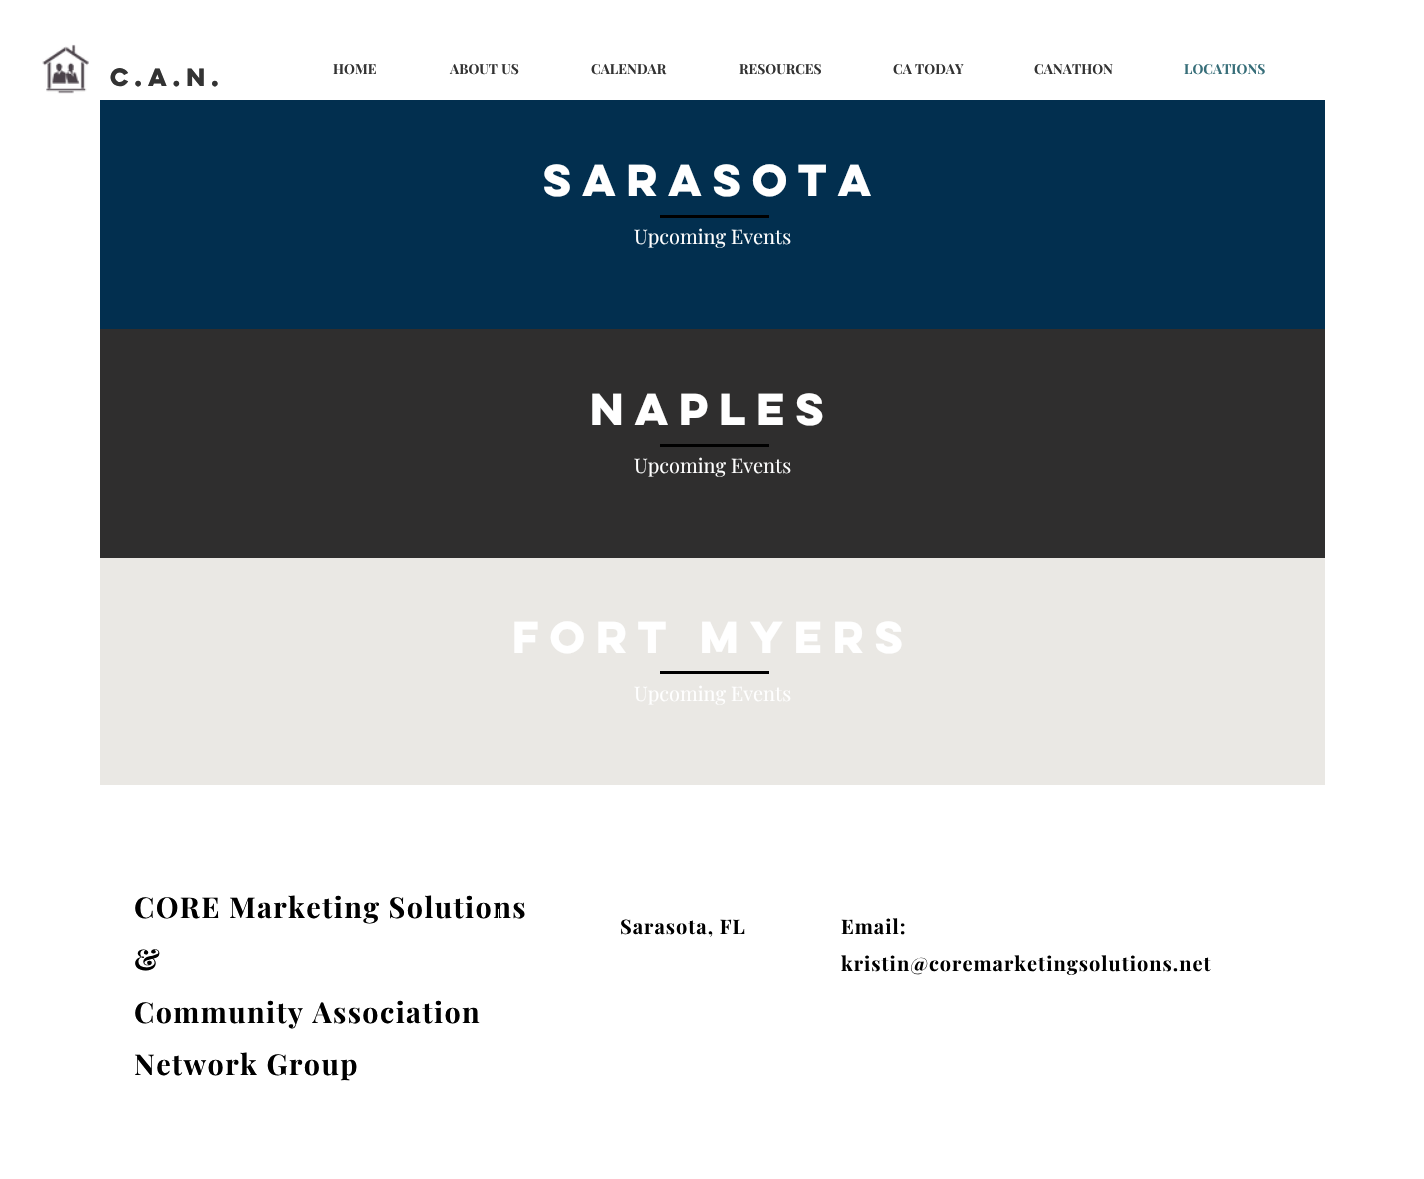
void draw(SkCanvas* canvas) {
  SkPaint paint;
  paint.setAntiAlias(true);
  auto face = [&](const char* family, int weight, float size, bool italic = false) {
    SkFontStyle style(weight, SkFontStyle::kNormal_Width,
      italic ? SkFontStyle::kItalic_Slant : SkFontStyle::kUpright_Slant);
    SkFont result(fontMgr->matchFamilyStyle(family, style), size);
    result.setSubpixel(true);
    return result;
  };
  auto writeSpaced = [&](const char* s, float x, float y, const SkFont& font, const SkPaint& ink, float letter, float word) {
    std::vector<SkGlyphID> glyphs(font.countText(s, strlen(s), SkTextEncoding::kUTF8));
    std::vector<float> xs(glyphs.size());
    font.textToGlyphs(s, strlen(s), SkTextEncoding::kUTF8, glyphs);
    font.getXPos(glyphs, xs, x);
    float extra = 0;
    for (size_t i = 0; i < glyphs.size(); i++) {
      xs[i] += extra;
      extra += letter + word * (glyphs[i] == font.unicharToGlyph(' '));
    }
    canvas->drawTextBlob(SkTextBlob::MakeFromPosHGlyphs(glyphs, xs, y, font), 0, 0, ink);
  };
  auto paste = [&](const char* path, float x, float y, float w, float h) {
    auto image = SkImages::DeferredFromEncodedData(SkData::MakeFromFileName(path));
    canvas->drawImageRect(image, SkRect::MakeXYWH(x, y, w, h), SkSamplingOptions());
  };
  canvas->clear(0xffffffff);
  paste("img/1.png", 42, 44, 47, 50);
  {
    const struct { float x, y, w, h; SkColor color; } items[] = {
      {100, 100, 1225, 229, 0xff022f4f},
      {660, 215, 109, 3, 0xff000000},
      {100, 329, 1225, 229, 0xff2f2e2e},
      {660, 444, 109, 3, 0xff000000},
      {100, 558, 1225, 227, 0xffeae8e4},
      {660, 671, 109, 3, 0xff000000},
    };
    for (auto [x, y, w, h, color] : items) {
      paint.setColor(color);
      canvas->drawRect(SkRect::MakeXYWH(x, y, w, h), paint);
    }
  }
  auto f0 = face("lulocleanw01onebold", 700, 22.5f);
  paint.setColor(0xff333333);
  writeSpaced("C.A.N.", 110, 86, f0, paint, 1, 0);
  auto f1 = face("Playfair Display", 700, 13.75f);
  {
    const struct { const char* s; float x, y; } items[] = {
      {"HOME", 333, 74},
      {"ABOUT US", 450, 74},
      {"CALENDAR", 591, 74},
      {"RESOURCES", 739, 74},
      {"CA TODAY", 893, 74},
      {"CANATHON", 1034, 74},
    };
    for (auto [s, x, y] : items) {
      canvas->drawString(s, x, y, f1, paint);
    }
  }
  paint.setColor(0xff376e79);
  canvas->drawString("LOCATIONS", 1184, 74, f1, paint);
  auto f2 = face("lulocleanw01onebold", 700, 40);
  paint.setColor(0xffffffff);
  writeSpaced("Sarasota", 543, 196, f2, paint, 2, 0);
  auto f3 = face("Playfair Display", 400, 20);
  canvas->drawString("Upcoming Events", 634, 244, f3, paint);
  writeSpaced("Naples", 590, 425, f2, paint, 2, 0);
  canvas->drawString("Upcoming Events", 634, 473, f3, paint);
  writeSpaced("FORT MYERS", 512, 653, f2, paint, 2, 0);
  canvas->drawString("Upcoming Events", 634, 701, f3, paint);
  auto f4 = face("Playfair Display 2", 700, 28.75f);
  paint.setColor(0xff000000);
  {
    const struct { const char* s; float x, y; } items[] = {
      {"CORE Marketing Solutions", 134, 918},
      {"&", 134, 970},
      {"Community Association", 134, 1023},
      {"Network Group", 134, 1075},
    };
    for (auto [s, x, y] : items) {
      writeSpaced(s, x, y, f4, paint, 1.4f, 0);
    }
  }
  paint.setColor(0xffffffff);
  canvas->drawRect(SkRect::MakeXYWH(498, 909, 1, 9), paint);
  auto f5 = face("Playfair Display 2", 700, 20);
  paint.setColor(0xff000000);
  {
    const struct { const char* s; float x, y; } items[] = {
      {"Sarasota, FL", 620, 934},
      {"Email:", 841, 934},
      {"kristin@coremarketingsolutions.net", 841, 971},
    };
    for (auto [s, x, y] : items) {
      writeSpaced(s, x, y, f5, paint, 1, 0);
    }
  }
}
